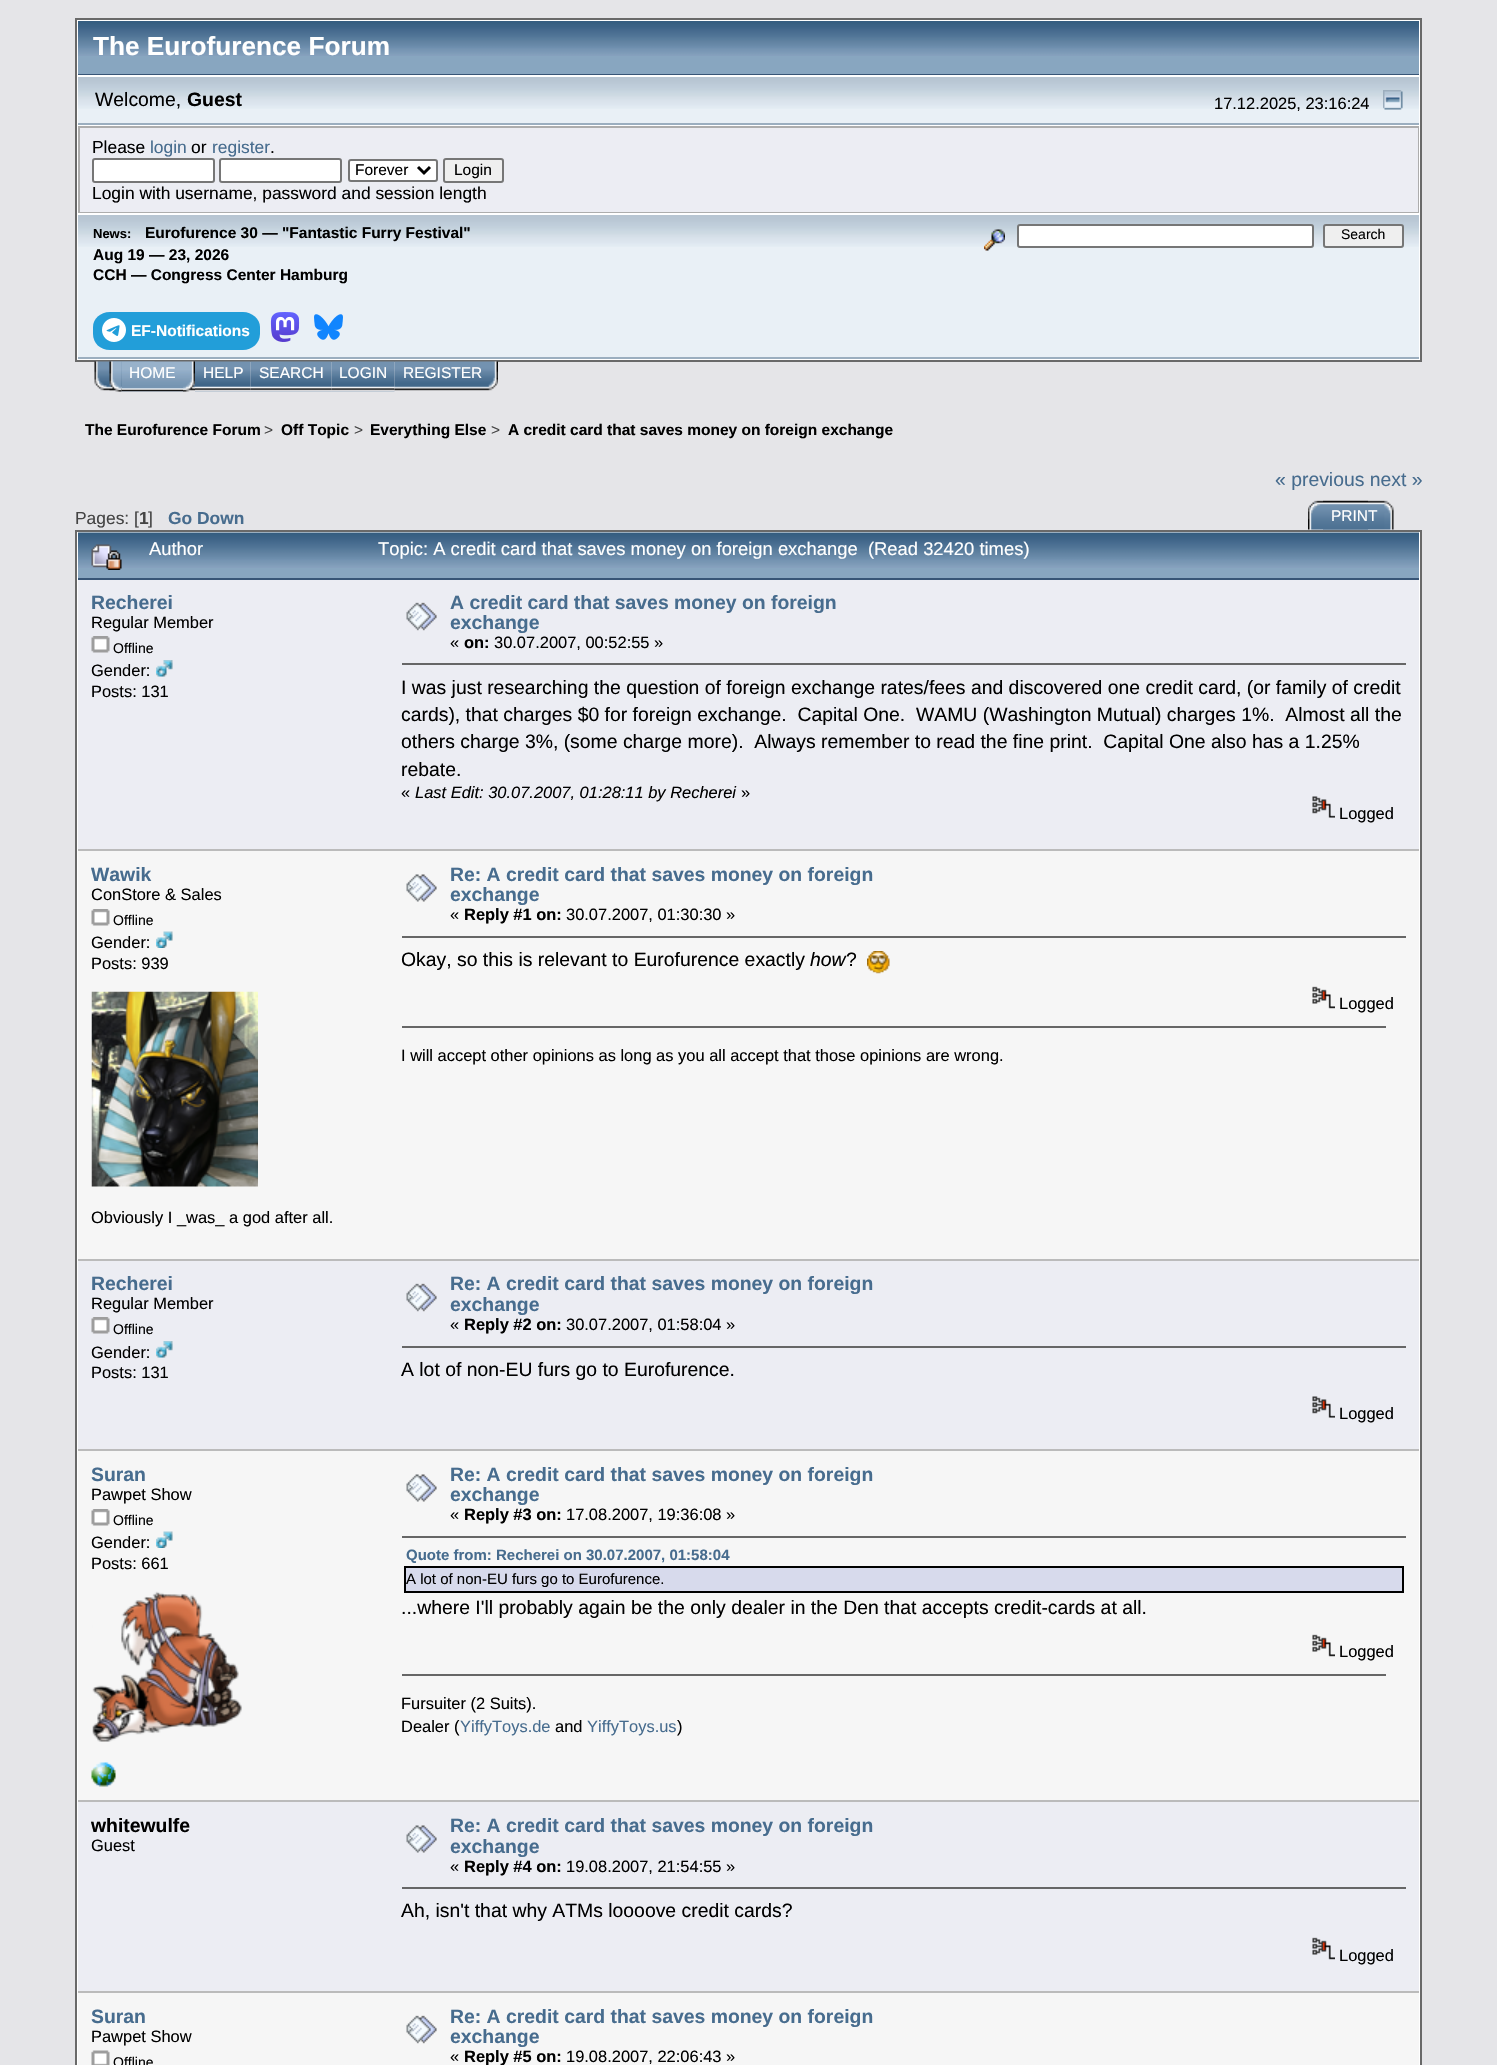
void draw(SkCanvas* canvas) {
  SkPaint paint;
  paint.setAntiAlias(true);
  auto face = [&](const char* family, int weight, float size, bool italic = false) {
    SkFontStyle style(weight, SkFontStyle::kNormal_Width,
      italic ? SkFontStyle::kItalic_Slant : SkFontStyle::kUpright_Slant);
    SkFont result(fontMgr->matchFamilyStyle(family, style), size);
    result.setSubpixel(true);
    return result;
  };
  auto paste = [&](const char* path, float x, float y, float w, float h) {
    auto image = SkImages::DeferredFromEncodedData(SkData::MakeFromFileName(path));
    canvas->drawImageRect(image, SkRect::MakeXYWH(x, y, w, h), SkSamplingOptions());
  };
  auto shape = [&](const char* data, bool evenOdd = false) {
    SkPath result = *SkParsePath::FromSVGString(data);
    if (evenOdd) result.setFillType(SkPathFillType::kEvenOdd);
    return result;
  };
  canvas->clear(0xffe5e5e8);
  paint.setColor(0xffffffff);
  canvas->drawRect(SkRect::MakeXYWH(76, 19, 1345, 342), paint);
  paint.setStroke(true);
  paint.setStrokeWidth(2);
  paint.setColor(0xff696969);
  canvas->drawRect(SkRect::MakeXYWH(76, 19, 1345, 342), paint);
  paint.setStroke(false);
  paint.setColor(0xff88a6c0);
  canvas->drawRect(SkRect::MakeXYWH(78, 56, 1341, 18), paint);
  paste("img/1.png", 78, 21, 1341, 35);
  paint.setColor(0xff375576);
  canvas->drawRect(SkRect::MakeXYWH(78, 74, 1341, 1), paint);
  paint.setColor(0xffe9f0f6);
  canvas->drawRect(SkRect::MakeXYWH(78, 109, 1341, 14), paint);
  paste("img/2.png", 78, 77, 1341, 32);
  paint.setColor(0xff9baebf);
  canvas->drawRect(SkRect::MakeXYWH(78, 123, 1341, 2), paint);
  paste("img/3.png", 1383, 90, 20, 20);
  paint.setColor(0xffadadad);
  canvas->drawRect(SkRect::MakeXYWH(78, 126, 1341, 87), paint);
  paint.setColor(0xffecedf3);
  canvas->drawRect(SkRect::MakeXYWH(80, 128, 1338, 84), paint);
  paint.setColor(0xffffffff);
  canvas->drawRoundRect(SkRect::MakeXYWH(93, 159, 121, 23), 2, 2, paint);
  paint.setStroke(true);
  paint.setColor(0xff767676);
  canvas->drawRoundRect(SkRect::MakeXYWH(93, 159, 121, 23), 2, 2, paint);
  paint.setStroke(false);
  paint.setColor(0xffffffff);
  canvas->drawRoundRect(SkRect::MakeXYWH(220, 159, 121, 23), 2, 2, paint);
  paint.setStroke(true);
  paint.setColor(0xff767676);
  canvas->drawRoundRect(SkRect::MakeXYWH(220, 159, 121, 23), 2, 2, paint);
  paint.setStroke(false);
  paint.setColor(0xffffffff);
  canvas->drawRoundRect(SkRect::MakeXYWH(349, 160, 88, 21), 2, 2, paint);
  paint.setStroke(true);
  paint.setColor(0xff767676);
  canvas->drawRoundRect(SkRect::MakeXYWH(349, 160, 88, 21), 2, 2, paint);
  paint.setStrokeWidth(3);
  paint.setColor(0xff000000);
  canvas->drawPath(shape("M418 167L424 173L430 167"), paint);
  paint.setStroke(false);
  paint.setColor(0xffefefef);
  canvas->drawRoundRect(SkRect::MakeXYWH(444, 159, 59, 23), 2, 2, paint);
  paint.setStroke(true);
  paint.setStrokeWidth(2);
  paint.setColor(0xff767676);
  canvas->drawRoundRect(SkRect::MakeXYWH(444, 159, 59, 23), 2, 2, paint);
  paint.setStroke(false);
  paint.setColor(0xffe9f0f6);
  canvas->drawRect(SkRect::MakeXYWH(78, 247, 1341, 110), paint);
  paste("img/2.png", 78, 215, 1341, 32);
  paint.setColor(0xff9baebf);
  canvas->drawRect(SkRect::MakeXYWH(78, 357, 1341, 2), paint);
  paint.setColor(0xff229ed9);
  canvas->drawPath(shape("M110 312H243C252 312 260 319 260 327V334C260 343 252 350 243 350H110C100 350 93 343 93 334V327C93 319 100 312 110 312Z"), paint);
  paste("img/4.png", 102, 318, 24, 24);
  paste("img/5.png", 270, 312, 30, 30);
  paste("img/6.png", 314, 314, 29, 26);
  paste("img/7.png", 984, 229, 21, 22);
  paint.setColor(0xffffffff);
  canvas->drawRoundRect(SkRect::MakeXYWH(1018, 225, 295, 22), 2, 2, paint);
  paint.setStroke(true);
  paint.setColor(0xff767676);
  canvas->drawRoundRect(SkRect::MakeXYWH(1018, 225, 295, 22), 2, 2, paint);
  paint.setStroke(false);
  paint.setColor(0xffefefef);
  canvas->drawRoundRect(SkRect::MakeXYWH(1324, 225, 79, 22), 2, 2, paint);
  paint.setStroke(true);
  paint.setColor(0xff767676);
  canvas->drawRoundRect(SkRect::MakeXYWH(1324, 225, 79, 22), 2, 2, paint);
  paste("img/8.png", 94, 361, 61, 30);
  paste("img/9.png", 183, 361, 12, 31);
  paste("img/10.png", 109, 361, 13, 31);
  paste("img/11.png", 121, 361, 62, 31);
  paste("img/12.png", 195, 361, 56, 31);
  paste("img/13.png", 250, 361, 82, 31);
  paste("img/14.png", 331, 361, 64, 31);
  paste("img/15.png", 394, 361, 104, 30);
  paste("img/16.png", 1308, 500, 60, 30);
  paste("img/17.png", 1323, 500, 71, 30);
  paint.setStroke(false);
  paint.setColor(0xffffffff);
  canvas->drawRect(SkRect::MakeXYWH(76, 531, 1345, 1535), paint);
  paint.setStroke(true);
  paint.setColor(0xff696969);
  canvas->drawRect(SkRect::MakeXYWH(76, 531, 1345, 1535), paint);
  paint.setStroke(false);
  paint.setColor(0xff88a6c0);
  canvas->drawRect(SkRect::MakeXYWH(78, 568, 1341, 10), paint);
  paste("img/18.png", 78, 532, 1341, 36);
  paint.setColor(0xff375576);
  canvas->drawRect(SkRect::MakeXYWH(78, 578, 1341, 2), paint);
  paste("img/19.png", 91, 544, 31, 26);
  paint.setColor(0xffecedf3);
  canvas->drawRect(SkRect::MakeXYWH(78, 580, 1341, 269), paint);
  paste("img/20.png", 91, 636, 19, 17);
  paste("img/21.png", 156, 660, 17, 17);
  paste("img/22.png", 406, 602, 31, 29);
  paint.setColor(0xff666666);
  canvas->drawRect(SkRect::MakeXYWH(402, 663, 1004, 2), paint);
  paste("img/23.png", 1312, 796, 23, 22);
  paint.setColor(0xfff6f6f6);
  canvas->drawRect(SkRect::MakeXYWH(78, 851, 1341, 408), paint);
  paint.setColor(0xffbbbbbb);
  canvas->drawRect(SkRect::MakeXYWH(78, 849, 1341, 2), paint);
  paste("img/24.png", 91, 909, 19, 17);
  paste("img/25.png", 156, 931, 17, 17);
  paste("img/26.png", 91, 991, 167, 196);
  paste("img/27.png", 406, 874, 31, 28);
  paint.setColor(0xff666666);
  canvas->drawRect(SkRect::MakeXYWH(402, 936, 1004, 2), paint);
  paste("img/28.png", 867, 951, 23, 23);
  paste("img/29.png", 1312, 986, 23, 23);
  {
    const struct { float x, y, w, h; SkColor color; } items[] = {
      {402, 1026, 984, 2, 0xff666666},
      {78, 1261, 1341, 188, 0xffecedf3},
      {78, 1259, 1341, 2, 0xffbbbbbb},
    };
    for (auto [x, y, w, h, color] : items) {
      paint.setColor(color);
      canvas->drawRect(SkRect::MakeXYWH(x, y, w, h), paint);
    }
  }
  paste("img/20.png", 91, 1317, 19, 17);
  paste("img/21.png", 156, 1341, 17, 17);
  paste("img/22.png", 406, 1283, 31, 29);
  paint.setColor(0xff666666);
  canvas->drawRect(SkRect::MakeXYWH(402, 1346, 1004, 2), paint);
  paste("img/23.png", 1312, 1396, 23, 22);
  paint.setColor(0xfff6f6f6);
  canvas->drawRect(SkRect::MakeXYWH(78, 1451, 1341, 349), paint);
  paint.setColor(0xffbbbbbb);
  canvas->drawRect(SkRect::MakeXYWH(78, 1449, 1341, 2), paint);
  paste("img/24.png", 91, 1509, 19, 17);
  paste("img/25.png", 156, 1531, 17, 17);
  paste("img/30.png", 92, 1591, 150, 151);
  paste("img/31.png", 91, 1762, 25, 25);
  paste("img/27.png", 406, 1474, 31, 28);
  paint.setColor(0xff666666);
  canvas->drawRect(SkRect::MakeXYWH(402, 1536, 1004, 2), paint);
  paint.setColor(0xffd7daec);
  canvas->drawRect(SkRect::MakeXYWH(405, 1567, 998, 25), paint);
  paint.setStroke(true);
  paint.setColor(0xff000000);
  canvas->drawRect(SkRect::MakeXYWH(405, 1567, 998, 25), paint);
  paste("img/29.png", 1312, 1634, 23, 23);
  paint.setStroke(false);
  {
    const struct { float x, y, w, h; SkColor color; } items[] = {
      {402, 1674, 984, 2, 0xff666666},
      {78, 1802, 1341, 189, 0xffecedf3},
      {78, 1800, 1341, 2, 0xffbbbbbb},
    };
    for (auto [x, y, w, h, color] : items) {
      paint.setColor(color);
      canvas->drawRect(SkRect::MakeXYWH(x, y, w, h), paint);
    }
  }
  paste("img/32.png", 406, 1825, 31, 28);
  paint.setColor(0xff666666);
  canvas->drawRect(SkRect::MakeXYWH(402, 1887, 1004, 2), paint);
  paste("img/33.png", 1312, 1937, 23, 23);
  paint.setColor(0xfff6f6f6);
  canvas->drawRect(SkRect::MakeXYWH(78, 1993, 1341, 72), paint);
  paint.setColor(0xffbbbbbb);
  canvas->drawRect(SkRect::MakeXYWH(78, 1991, 1341, 2), paint);
  paste("img/34.png", 91, 2050, 19, 15);
  paste("img/35.png", 406, 2015, 31, 29);
  auto f0 = face("Liberation Sans", 700, 26.2f);
  paint.setColor(0xffffffff);
  canvas->drawString("The Eurofurence Forum", 93, 55, f0, paint);
  auto f1 = face("Liberation Sans", 400, 19.38f);
  paint.setColor(0xff000000);
  canvas->drawString("Welcome,", 95, 106, f1, paint);
  auto f2 = face("Liberation Sans", 700, 19.38f);
  canvas->drawString("Guest", 187, 106, f2, paint);
  auto f3 = face("Liberation Sans", 400, 16.45f);
  canvas->drawString("17.12.2025, 23:16:24", 1214, 109, f3, paint);
  auto f4 = face("Liberation Sans", 400, 17.4f);
  canvas->drawString("Please", 92, 153, f4, paint);
  paint.setColor(0xff476c8e);
  canvas->drawString("login", 150, 153, f4, paint);
  paint.setColor(0xff000000);
  canvas->drawString("or", 191, 153, f4, paint);
  paint.setColor(0xff476c8e);
  canvas->drawString("register", 212, 153, f4, paint);
  paint.setColor(0xff000000);
  canvas->drawString(".", 270, 153, f4, paint);
  auto f5 = face("Liberation Sans", 400, 15.5f);
  canvas->drawString("Forever", 355, 175, f5, paint);
  canvas->drawString("Login", 454, 175, f5, paint);
  canvas->drawString("Login with username, password and session length", 92, 199, f4, paint);
  auto f6 = face("Liberation Sans", 700, 13);
  canvas->drawString("News:", 93, 238, f6, paint);
  auto f7 = face("Liberation Sans", 700, 15.5f);
  {
    const struct { const char* s; float x, y; } items[] = {
      {"Eurofurence 30 — \"Fantastic Furry Festival\"", 145, 238},
      {"Aug 19 — 23, 2026", 93, 260},
      {"CCH — Congress Center Hamburg", 93, 280},
    };
    for (auto [s, x, y] : items) {
      canvas->drawString(s, x, y, f7, paint);
    }
  }
  paint.setColor(0xffffffff);
  canvas->drawString("EF-Notifications", 131, 336, f7, paint);
  auto f8 = face("Liberation Sans", 400, 14);
  paint.setColor(0xff000000);
  canvas->drawString("Search", 1341, 239, f8, paint);
  paint.setColor(0xffffffff);
  {
    const struct { const char* s; float x, y; } items[] = {
      {"HOME", 129, 378},
      {"HELP", 203, 378},
      {"SEARCH", 259, 378},
      {"LOGIN", 339, 378},
      {"REGISTER", 403, 378},
    };
    for (auto [s, x, y] : items) {
      canvas->drawString(s, x, y, f5, paint);
    }
  }
  paint.setColor(0xff000000);
  canvas->drawString("The Eurofurence Forum", 85, 435, f7, paint);
  paint.setColor(0xff444444);
  canvas->drawString(">", 264, 435, f5, paint);
  paint.setColor(0xff000000);
  canvas->drawString("Off Topic", 281, 435, f7, paint);
  paint.setColor(0xff444444);
  canvas->drawString(">", 354, 435, f5, paint);
  paint.setColor(0xff000000);
  canvas->drawString("Everything Else", 370, 435, f7, paint);
  paint.setColor(0xff444444);
  canvas->drawString(">", 491, 435, f5, paint);
  paint.setColor(0xff000000);
  canvas->drawString("A credit card that saves money on foreign exchange", 508, 435, f7, paint);
  paint.setColor(0xff476c8e);
  canvas->drawString("« previous next »", 1275, 486, f1, paint);
  paint.setColor(0xff444444);
  canvas->drawString("Pages: [", 75, 524, f4, paint);
  auto f9 = face("Liberation Sans", 700, 17.4f);
  canvas->drawString("1", 139, 524, f9, paint);
  canvas->drawString("]", 148, 524, f4, paint);
  paint.setColor(0xff476c8e);
  canvas->drawString("Go Down", 168, 524, f9, paint);
  paint.setColor(0xffffffff);
  canvas->drawString("PRINT", 1331, 521, f5, paint);
  auto f10 = face("Liberation Sans", 400, 18.4f);
  canvas->drawString("Author", 149, 555, f10, paint);
  canvas->drawString("Topic: A credit card that saves money on foreign exchange  (Read 32420 times)", 378, 555, f10, paint);
  paint.setColor(0xff476c8e);
  canvas->drawString("Recherei", 91, 609, f2, paint);
  paint.setColor(0xff000000);
  canvas->drawString("Regular Member", 91, 628, f3, paint);
  canvas->drawString("Offline", 113, 653, f8, paint);
  canvas->drawString("Gender:", 91, 676, f3, paint);
  canvas->drawString("Posts: 131", 91, 697, f3, paint);
  paint.setColor(0xff476c8e);
  canvas->drawString("A credit card that saves money on foreign", 450, 609, f2, paint);
  canvas->drawString("exchange", 450, 629, f2, paint);
  paint.setColor(0xff000000);
  canvas->drawString("«", 450, 648, f3, paint);
  auto f11 = face("Liberation Sans", 700, 16.45f);
  canvas->drawString("on:", 464, 648, f11, paint);
  canvas->drawString("30.07.2007, 00:52:55 »", 494, 648, f3, paint);
  {
    const struct { const char* s; float x, y; } items[] = {
      {"I was just researching the question of foreign exchange rates/fees and discovered one credit card, (or family of credit", 401, 694},
      {"cards), that charges $0 for foreign exchange.  Capital One.  WAMU (Washington Mutual) charges 1%.  Almost all the", 401, 721},
      {"others charge 3%, (some charge more).  Always remember to read the fine print.  Capital One also has a 1.25%", 401, 748},
      {"rebate.", 401, 776},
    };
    for (auto [s, x, y] : items) {
      canvas->drawString(s, x, y, f1, paint);
    }
  }
  canvas->drawString("«", 401, 798, f3, paint);
  auto f12 = face("Liberation Sans", 400, 16.45f, true);
  canvas->drawString("Last Edit: 30.07.2007, 01:28:11 by Recherei", 415, 798, f12, paint);
  canvas->drawString("»", 741, 798, f3, paint);
  canvas->drawString("Logged", 1339, 819, f3, paint);
  paint.setColor(0xff476c8e);
  canvas->drawString("Wawik", 91, 881, f2, paint);
  paint.setColor(0xff000000);
  canvas->drawString("ConStore & Sales", 91, 900, f3, paint);
  canvas->drawString("Offline", 113, 925, f8, paint);
  {
    const struct { const char* s; float x, y; } items[] = {
      {"Gender:", 91, 948},
      {"Posts: 939", 91, 969},
      {"Obviously I _was_ a god after all.", 91, 1223},
    };
    for (auto [s, x, y] : items) {
      canvas->drawString(s, x, y, f3, paint);
    }
  }
  paint.setColor(0xff476c8e);
  canvas->drawString("Re: A credit card that saves money on foreign", 450, 881, f2, paint);
  canvas->drawString("exchange", 450, 901, f2, paint);
  paint.setColor(0xff000000);
  canvas->drawString("«", 450, 920, f3, paint);
  canvas->drawString("Reply #1 on:", 464, 920, f11, paint);
  canvas->drawString("30.07.2007, 01:30:30 »", 566, 920, f3, paint);
  canvas->drawString("Okay, so this is relevant to Eurofurence exactly", 401, 966, f1, paint);
  auto f13 = face("Liberation Sans", 400, 19.38f, true);
  canvas->drawString("how", 810, 966, f13, paint);
  canvas->drawString("?", 846, 966, f1, paint);
  canvas->drawString("Logged", 1339, 1009, f3, paint);
  canvas->drawString("I will accept other opinions as long as you all accept that those opinions are wrong.", 401, 1061, f3, paint);
  paint.setColor(0xff476c8e);
  canvas->drawString("Recherei", 91, 1290, f2, paint);
  paint.setColor(0xff000000);
  canvas->drawString("Regular Member", 91, 1309, f3, paint);
  canvas->drawString("Offline", 113, 1334, f8, paint);
  canvas->drawString("Gender:", 91, 1358, f3, paint);
  canvas->drawString("Posts: 131", 91, 1378, f3, paint);
  paint.setColor(0xff476c8e);
  canvas->drawString("Re: A credit card that saves money on foreign", 450, 1290, f2, paint);
  canvas->drawString("exchange", 450, 1311, f2, paint);
  paint.setColor(0xff000000);
  canvas->drawString("«", 450, 1330, f3, paint);
  canvas->drawString("Reply #2 on:", 464, 1330, f11, paint);
  canvas->drawString("30.07.2007, 01:58:04 »", 566, 1330, f3, paint);
  canvas->drawString("A lot of non-EU furs go to Eurofurence.", 401, 1376, f1, paint);
  canvas->drawString("Logged", 1339, 1419, f3, paint);
  paint.setColor(0xff476c8e);
  canvas->drawString("Suran", 91, 1481, f2, paint);
  paint.setColor(0xff000000);
  canvas->drawString("Pawpet Show", 91, 1500, f3, paint);
  canvas->drawString("Offline", 113, 1525, f8, paint);
  canvas->drawString("Gender:", 91, 1548, f3, paint);
  canvas->drawString("Posts: 661", 91, 1569, f3, paint);
  paint.setColor(0xff476c8e);
  canvas->drawString("Re: A credit card that saves money on foreign", 450, 1481, f2, paint);
  canvas->drawString("exchange", 450, 1501, f2, paint);
  paint.setColor(0xff000000);
  canvas->drawString("«", 450, 1520, f3, paint);
  canvas->drawString("Reply #3 on:", 464, 1520, f11, paint);
  canvas->drawString("17.08.2007, 19:36:08 »", 566, 1520, f3, paint);
  auto f14 = face("Liberation Sans", 700, 15);
  paint.setColor(0xff476c8e);
  canvas->drawString("Quote from: Recherei on 30.07.2007, 01:58:04", 406, 1560, f14, paint);
  auto f15 = face("Liberation Sans", 400, 15);
  paint.setColor(0xff000000);
  canvas->drawString("A lot of non-EU furs go to Eurofurence.", 406, 1584, f15, paint);
  canvas->drawString("...where I'll probably again be the only dealer in the Den that accepts credit-cards at all.", 401, 1614, f1, paint);
  {
    const struct { const char* s; float x, y; } items[] = {
      {"Logged", 1339, 1657},
      {"Fursuiter (2 Suits).", 401, 1709},
      {"Dealer (", 401, 1732},
    };
    for (auto [s, x, y] : items) {
      canvas->drawString(s, x, y, f3, paint);
    }
  }
  paint.setColor(0xff476c8e);
  canvas->drawString("YiffyToys.de", 460, 1732, f3, paint);
  paint.setColor(0xff000000);
  canvas->drawString("and", 555, 1732, f3, paint);
  paint.setColor(0xff476c8e);
  canvas->drawString("YiffyToys.us", 587, 1732, f3, paint);
  paint.setColor(0xff000000);
  canvas->drawString(")", 677, 1732, f3, paint);
  canvas->drawString("whitewulfe", 91, 1832, f2, paint);
  canvas->drawString("Guest", 91, 1851, f3, paint);
  paint.setColor(0xff476c8e);
  canvas->drawString("Re: A credit card that saves money on foreign", 450, 1832, f2, paint);
  canvas->drawString("exchange", 450, 1853, f2, paint);
  paint.setColor(0xff000000);
  canvas->drawString("«", 450, 1872, f3, paint);
  canvas->drawString("Reply #4 on:", 464, 1872, f11, paint);
  canvas->drawString("19.08.2007, 21:54:55 »", 566, 1872, f3, paint);
  canvas->drawString("Ah, isn't that why ATMs loooove credit cards?", 401, 1917, f1, paint);
  canvas->drawString("Logged", 1339, 1961, f3, paint);
  paint.setColor(0xff476c8e);
  canvas->drawString("Suran", 91, 2023, f2, paint);
  paint.setColor(0xff000000);
  canvas->drawString("Pawpet Show", 91, 2042, f3, paint);
  canvas->drawString("Offline", 113, 2067, f8, paint);
  paint.setColor(0xff476c8e);
  canvas->drawString("Re: A credit card that saves money on foreign", 450, 2023, f2, paint);
  canvas->drawString("exchange", 450, 2043, f2, paint);
  paint.setColor(0xff000000);
  canvas->drawString("«", 450, 2062, f3, paint);
  canvas->drawString("Reply #5 on:", 464, 2062, f11, paint);
  canvas->drawString("19.08.2007, 22:06:43 »", 566, 2062, f3, paint);
}
